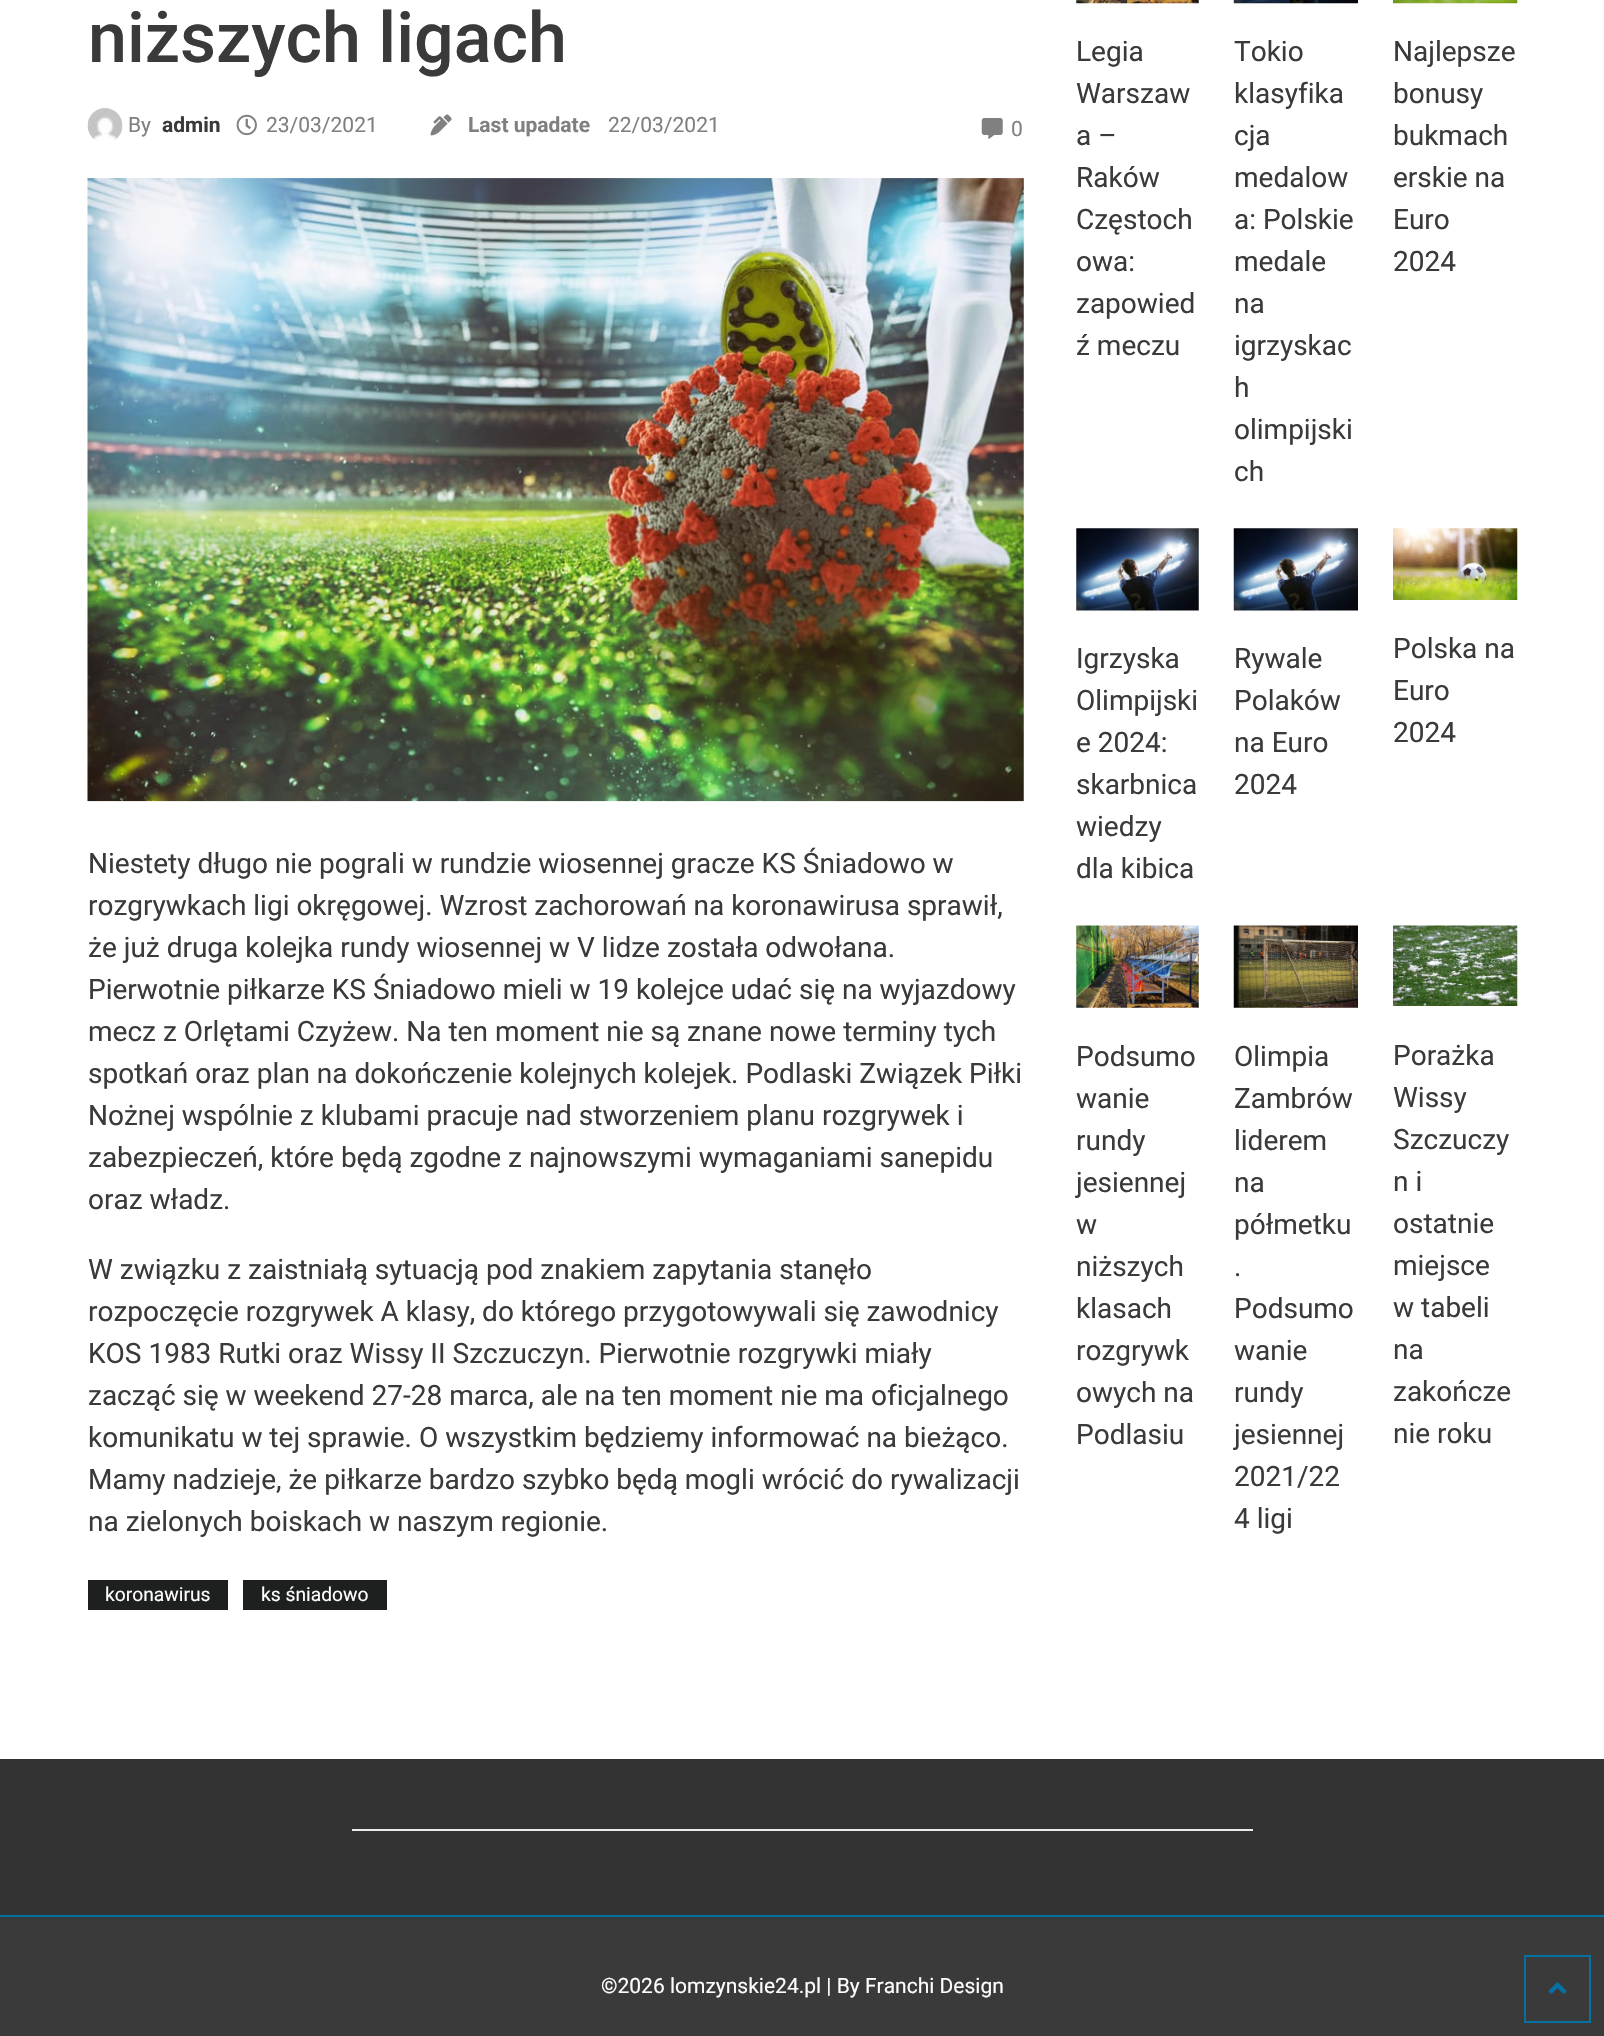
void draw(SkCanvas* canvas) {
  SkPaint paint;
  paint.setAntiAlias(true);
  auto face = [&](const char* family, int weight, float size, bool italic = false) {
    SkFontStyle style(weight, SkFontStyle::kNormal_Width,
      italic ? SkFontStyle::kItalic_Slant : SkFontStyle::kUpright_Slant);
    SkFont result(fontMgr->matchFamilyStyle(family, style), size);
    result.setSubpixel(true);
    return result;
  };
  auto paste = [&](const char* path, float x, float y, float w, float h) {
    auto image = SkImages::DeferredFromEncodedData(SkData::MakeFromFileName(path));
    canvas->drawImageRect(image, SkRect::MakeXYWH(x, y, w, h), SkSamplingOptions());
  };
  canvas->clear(0xffffffff);
  paste("img/1.png", 87, 108, 36, 32);
  paste("img/2.png", 236, 114, 21, 22);
  paste("img/3.png", 430, 114, 22, 22);
  paste("img/4.png", 981, 118, 22, 21);
  paste("img/5.png", 87, 178, 937, 624);
  paint.setColor(0xff1e1f1f);
  canvas->drawRect(SkRect::MakeXYWH(88, 1580, 140, 30), paint);
  canvas->drawRect(SkRect::MakeXYWH(243, 1580, 144, 30), paint);
  paste("img/6.png", 1076, 0, 123, 4);
  paste("img/7.png", 1233, 0, 125, 4);
  paste("img/8.png", 1393, 0, 125, 4);
  paste("img/9.png", 1076, 528, 123, 83);
  paste("img/10.png", 1233, 528, 125, 83);
  paste("img/11.png", 1393, 528, 125, 72);
  paste("img/12.png", 1076, 925, 123, 83);
  paste("img/13.png", 1233, 925, 125, 83);
  paste("img/14.png", 1393, 925, 125, 81);
  {
    const struct { float x, y, w, h; SkColor color; } items[] = {
      {0, 1759, 1604, 156, 0xff333333},
      {352, 1829, 901, 2, 0xffebebeb},
      {0, 1917, 1604, 119, 0xff3a3a3a},
      {0, 1915, 1604, 2, 0xff0570a2},
    };
    for (auto [x, y, w, h, color] : items) {
      paint.setColor(color);
      canvas->drawRect(SkRect::MakeXYWH(x, y, w, h), paint);
    }
  }
  paint.setStroke(true);
  paint.setStrokeWidth(2);
  canvas->drawRect(SkRect::MakeXYWH(1525, 1956, 65, 66), paint);
  paste("img/15.png", 1548, 1982, 19, 12);
  auto f0 = face("Roboto", 500, 70);
  paint.setStroke(false);
  paint.setColor(0xff3a3a3a);
  canvas->drawString("niższych ligach", 88, 62, f0, paint);
  auto f1 = face("Roboto", 400, 21);
  paint.setColor(0xff808080);
  canvas->drawString("By", 128, 132, f1, paint);
  auto f2 = face("Roboto", 700, 21);
  paint.setColor(0xff3a3a3a);
  canvas->drawString("admin", 162, 132, f2, paint);
  paint.setColor(0xff808080);
  canvas->drawString("23/03/2021", 266, 132, f1, paint);
  canvas->drawString("Last upadate", 468, 132, f2, paint);
  canvas->drawString("22/03/2021", 608, 132, f1, paint);
  canvas->drawString("0", 1011, 136, f1, paint);
  auto f3 = face("Roboto", 400, 28);
  paint.setColor(0xff3a3a3a);
  {
    const struct { const char* s; float x, y; } items[] = {
      {"Niestety długo nie pograli w rundzie wiosennej gracze KS Śniadowo w", 88, 873},
      {"rozgrywkach ligi okręgowej. Wzrost zachorowań na koronawirusa sprawił,", 88, 915},
      {"że już druga kolejka rundy wiosennej w V lidze została odwołana.", 88, 957},
      {"Pierwotnie piłkarze KS Śniadowo mieli w 19 kolejce udać się na wyjazdowy", 88, 999},
      {"mecz z Orlętami Czyżew. Na ten moment nie są znane nowe terminy tych", 88, 1041},
      {"spotkań oraz plan na dokończenie kolejnych kolejek. Podlaski Związek Piłki", 88, 1083},
      {"Nożnej wspólnie z klubami pracuje nad stworzeniem planu rozgrywek i", 88, 1125},
      {"zabezpieczeń, które będą zgodne z najnowszymi wymaganiami sanepidu", 88, 1167},
      {"oraz władz.", 88, 1209},
      {"W związku z zaistniałą sytuacją pod znakiem zapytania stanęło", 88, 1279},
      {"rozpoczęcie rozgrywek A klasy, do którego przygotowywali się zawodnicy", 88, 1321},
      {"KOS 1983 Rutki oraz Wissy II Szczuczyn. Pierwotnie rozgrywki miały", 88, 1363},
      {"zacząć się w weekend 27-28 marca, ale na ten moment nie ma oficjalnego", 88, 1405},
      {"komunikatu w tej sprawie. O wszystkim będziemy informować na bieżąco.", 88, 1447},
      {"Mamy nadzieje, że piłkarze bardzo szybko będą mogli wrócić do rywalizacji", 88, 1489},
      {"na zielonych boiskach w naszym regionie.", 88, 1531},
    };
    for (auto [s, x, y] : items) {
      canvas->drawString(s, x, y, f3, paint);
    }
  }
  auto f4 = face("Roboto", 400, 19.25f);
  paint.setColor(0xffffffff);
  canvas->drawString("koronawirus", 105, 1601, f4, paint);
  canvas->drawString("ks śniadowo", 261, 1601, f4, paint);
  paint.setColor(0xff3a3a3a);
  {
    const struct { const char* s; float x, y; } items[] = {
      {"Legia", 1076, 61},
      {"Warszaw", 1076, 103},
      {"a –", 1076, 145},
      {"Raków", 1076, 187},
      {"Częstoch", 1076, 229},
      {"owa:", 1076, 271},
      {"zapowied", 1076, 313},
      {"ź meczu", 1076, 355},
      {"Tokio", 1234, 61},
      {"klasyfika", 1234, 103},
      {"cja", 1234, 145},
      {"medalow", 1234, 187},
      {"a: Polskie", 1234, 229},
      {"medale", 1234, 271},
      {"na", 1234, 313},
      {"igrzyskac", 1234, 355},
      {"h", 1234, 397},
      {"olimpijski", 1234, 439},
      {"ch", 1234, 481},
      {"Najlepsze", 1393, 61},
      {"bonusy", 1393, 103},
      {"bukmach", 1393, 145},
      {"erskie na", 1393, 187},
      {"Euro", 1393, 229},
      {"2024", 1393, 271},
      {"Igrzyska", 1076, 668},
      {"Olimpijski", 1076, 710},
      {"e 2024:", 1076, 752},
      {"skarbnica", 1076, 794},
      {"wiedzy", 1076, 836},
      {"dla kibica", 1076, 878},
      {"Rywale", 1234, 668},
      {"Polaków", 1234, 710},
      {"na Euro", 1234, 752},
      {"2024", 1234, 794},
      {"Polska na", 1393, 658},
      {"Euro", 1393, 700},
      {"2024", 1393, 742},
      {"Podsumo", 1076, 1066},
      {"wanie", 1076, 1108},
      {"rundy", 1076, 1150},
      {"jesiennej", 1076, 1192},
      {"w", 1076, 1234},
      {"niższych", 1076, 1276},
      {"klasach", 1076, 1318},
      {"rozgrywk", 1076, 1360},
      {"owych na", 1076, 1402},
      {"Podlasiu", 1076, 1444},
      {"Olimpia", 1234, 1066},
      {"Zambrów", 1234, 1108},
      {"liderem", 1234, 1150},
      {"na", 1234, 1192},
      {"półmetku", 1234, 1234},
      {".", 1234, 1276},
      {"Podsumo", 1234, 1318},
      {"wanie", 1234, 1360},
      {"rundy", 1234, 1402},
      {"jesiennej", 1234, 1444},
      {"2021/22", 1234, 1486},
      {"4 ligi", 1234, 1528},
      {"Porażka", 1393, 1065},
      {"Wissy", 1393, 1107},
      {"Szczuczy", 1393, 1149},
      {"n i", 1393, 1191},
      {"ostatnie", 1393, 1233},
      {"miejsce", 1393, 1275},
      {"w tabeli", 1393, 1317},
      {"na", 1393, 1359},
      {"zakończe", 1393, 1401},
      {"nie roku", 1393, 1443},
    };
    for (auto [s, x, y] : items) {
      canvas->drawString(s, x, y, f3, paint);
    }
  }
  paint.setColor(0xffffffff);
  canvas->drawString("©2026 lomzynskie24.pl | By Franchi Design", 601, 1993, f1, paint);
}
